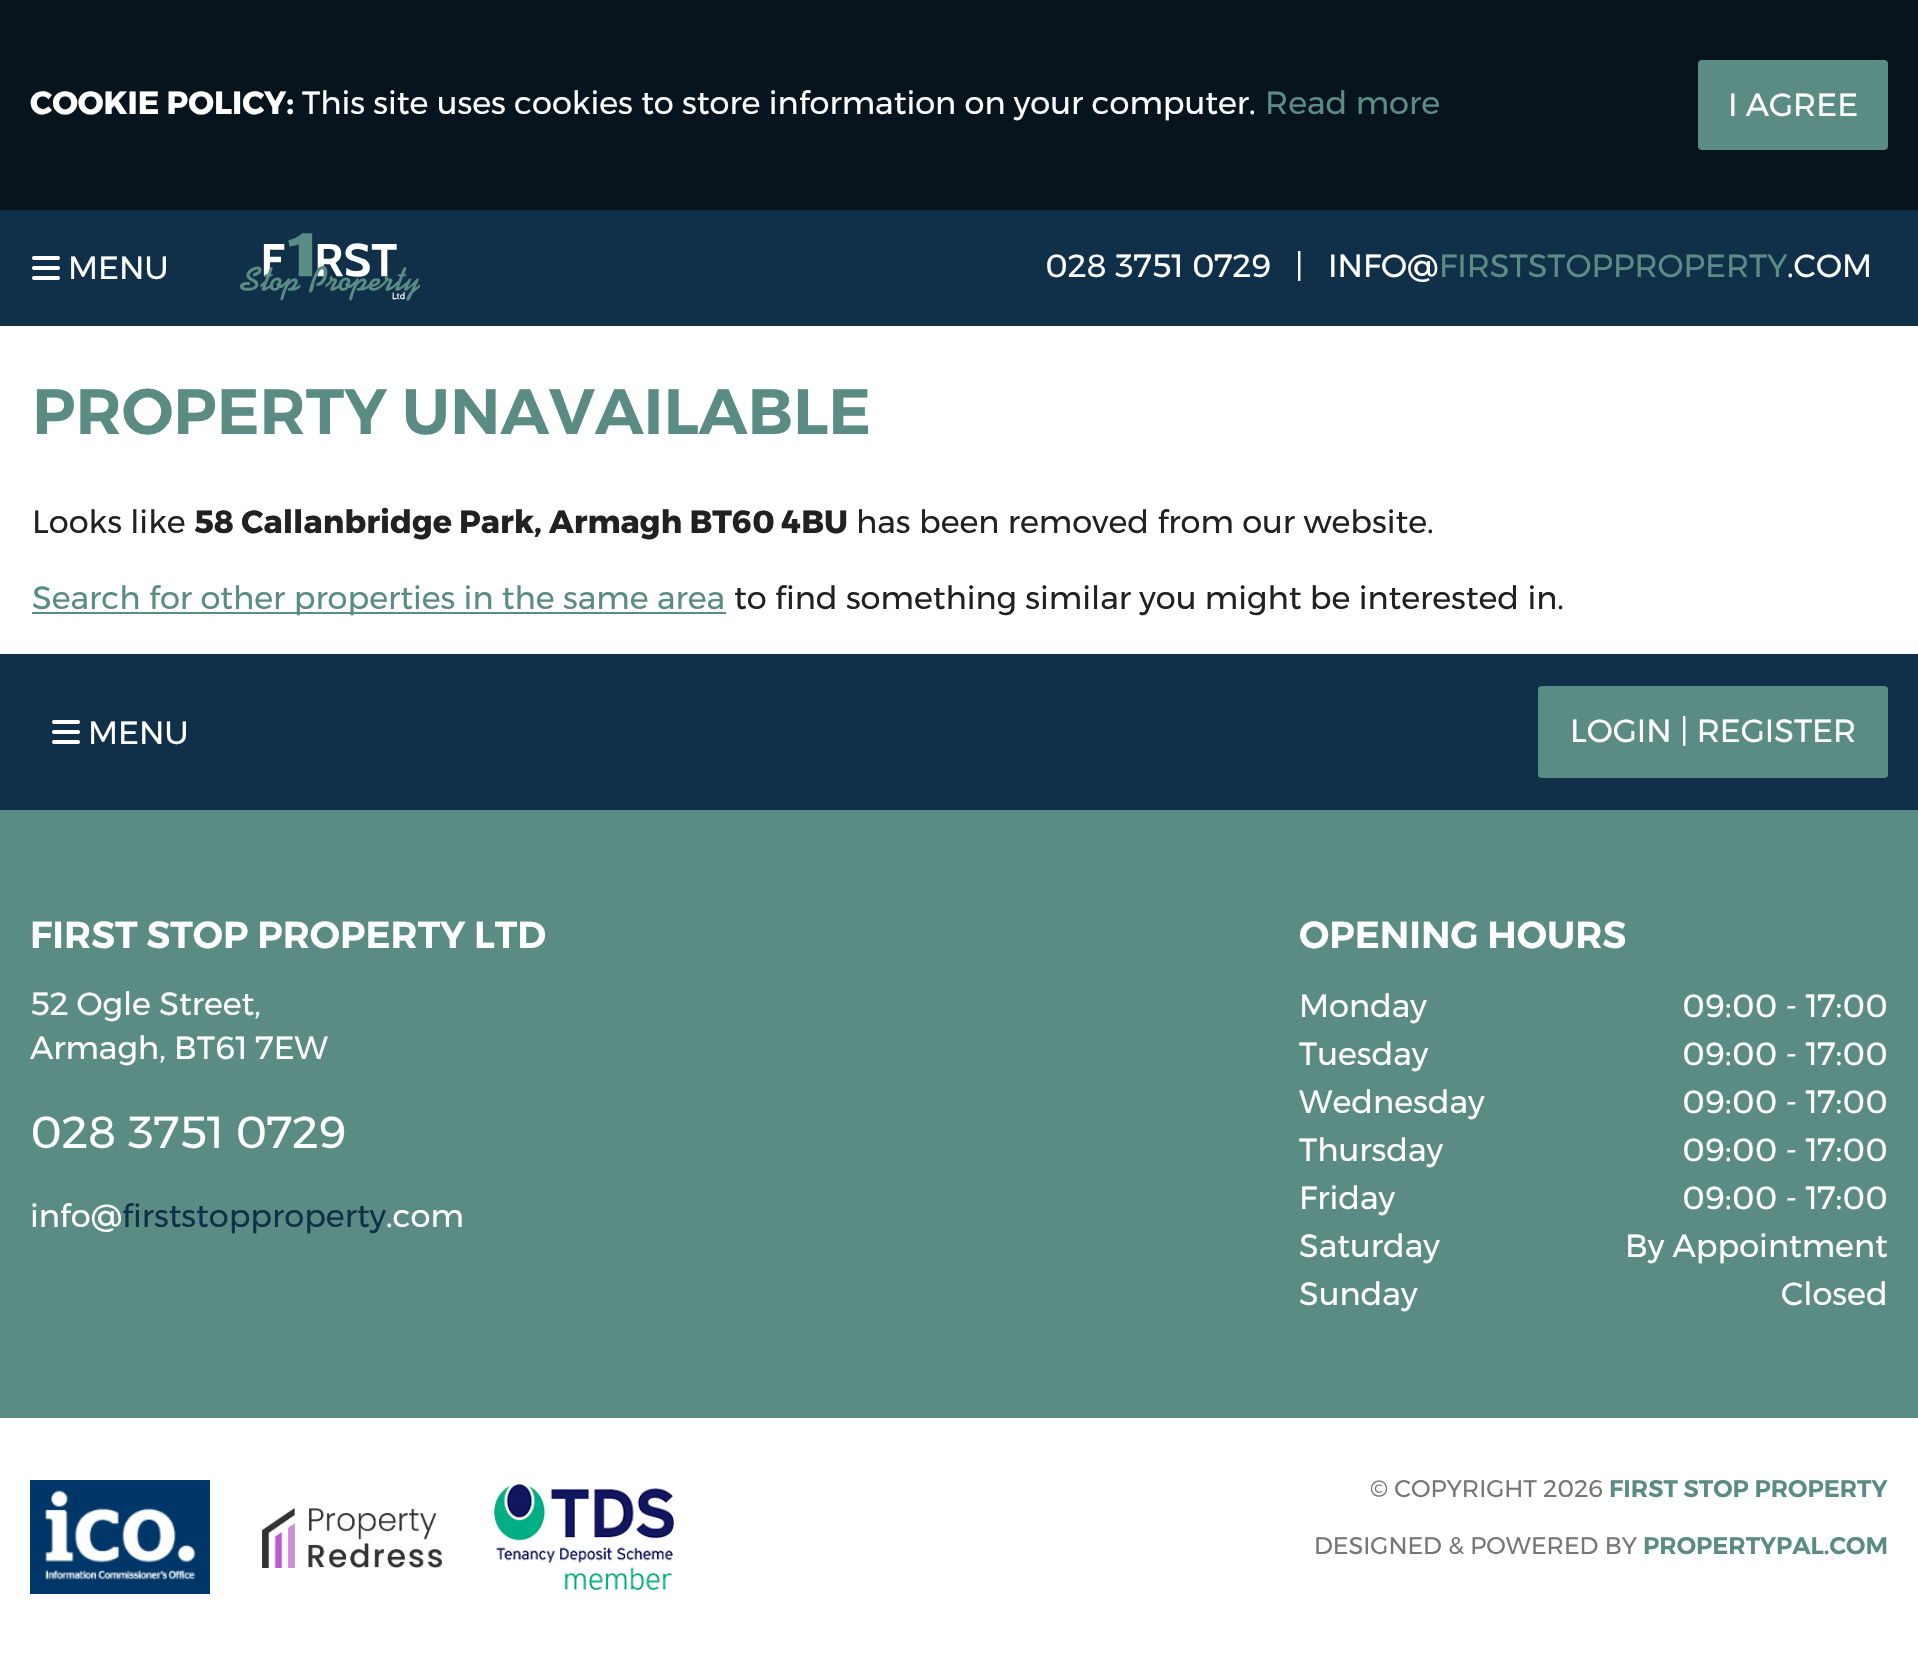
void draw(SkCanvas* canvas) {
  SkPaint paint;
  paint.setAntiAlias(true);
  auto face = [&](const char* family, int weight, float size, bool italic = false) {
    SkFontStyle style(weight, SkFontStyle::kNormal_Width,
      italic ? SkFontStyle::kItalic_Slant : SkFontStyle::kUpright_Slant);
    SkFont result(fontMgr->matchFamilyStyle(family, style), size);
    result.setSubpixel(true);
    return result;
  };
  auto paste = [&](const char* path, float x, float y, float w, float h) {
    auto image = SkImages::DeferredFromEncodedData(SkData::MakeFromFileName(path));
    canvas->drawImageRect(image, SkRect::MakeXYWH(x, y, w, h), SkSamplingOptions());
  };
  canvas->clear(0xffffffff);
  paint.setColor(0xff07141e);
  canvas->drawRect(SkRect::MakeXYWH(0, 0, 1918, 210), paint);
  paint.setColor(0xff5a8c84);
  canvas->drawRoundRect(SkRect::MakeXYWH(1698, 60, 190, 90), 4, 4, paint);
  paint.setColor(0xff102f48);
  canvas->drawRect(SkRect::MakeXYWH(0, 210, 1918, 116), paint);
  paste("img/1.png", 32, 256, 28, 24);
  paste("img/2.png", 240, 233, 180, 68);
  paint.setColor(0xff5a8c84);
  canvas->drawRect(SkRect::MakeXYWH(32, 612, 694, 2), paint);
  paint.setColor(0xff102f48);
  canvas->drawRect(SkRect::MakeXYWH(0, 654, 1918, 156), paint);
  paste("img/1.png", 52, 720, 28, 24);
  paint.setColor(0xff5a8c84);
  canvas->drawRoundRect(SkRect::MakeXYWH(1538, 686, 350, 92), 4, 4, paint);
  canvas->drawRect(SkRect::MakeXYWH(0, 810, 1918, 608), paint);
  paste("img/3.png", 30, 1480, 180, 114);
  paste("img/4.png", 262, 1508, 180, 60);
  paste("img/5.png", 494, 1484, 180, 106);
  auto f0 = face("Montserrat", 700, 32);
  paint.setColor(0xffffffff);
  canvas->drawString("COOKIE POLICY:", 30, 114, f0, paint);
  auto f1 = face("Montserrat", 400, 32);
  canvas->drawString("This site uses cookies to store information on your computer.", 302, 114, f1, paint);
  paint.setColor(0xff5a8c84);
  canvas->drawString("Read more", 1265, 114, f1, paint);
  paint.setColor(0xffffffff);
  {
    const struct { const char* s; float x, y; } items[] = {
      {"I AGREE", 1728, 116},
      {"MENU", 68, 279},
      {"028 3751 0729", 1045, 277},
      {"|", 1295, 277},
      {"INFO@", 1328, 277},
    };
    for (auto [s, x, y] : items) {
      canvas->drawString(s, x, y, f1, paint);
    }
  }
  paint.setColor(0xff5a8c84);
  canvas->drawString("FIRSTSTOPPROPERTY", 1439, 277, f1, paint);
  paint.setColor(0xffffffff);
  canvas->drawString(".COM", 1787, 277, f1, paint);
  auto f2 = face("Montserrat", 600, 64);
  paint.setColor(0xff5a8c84);
  canvas->drawString("PROPERTY UNAVAILABLE", 32, 434, f2, paint);
  paint.setColor(0xff212121);
  canvas->drawString("Looks like", 32, 533, f1, paint);
  canvas->drawString("58 Callanbridge Park, Armagh BT60 4BU", 194, 533, f0, paint);
  canvas->drawString("has been removed from our website.", 856, 533, f1, paint);
  paint.setColor(0xff5a8c84);
  canvas->drawString("Search for other properties in the same area", 32, 609, f1, paint);
  paint.setColor(0xff212121);
  canvas->drawString("to find something similar you might be interested in.", 734, 609, f1, paint);
  paint.setColor(0xffffffff);
  canvas->drawString("MENU", 88, 744, f1, paint);
  canvas->drawString("LOGIN | REGISTER", 1570, 742, f1, paint);
  auto f3 = face("Montserrat", 600, 37.5f);
  canvas->drawString("FIRST STOP PROPERTY LTD", 30, 948, f3, paint);
  canvas->drawString("52 Ogle Street,", 30, 1015, f1, paint);
  canvas->drawString("Armagh, BT61 7EW", 30, 1059, f1, paint);
  auto f4 = face("Montserrat", 400, 44.75f);
  canvas->drawString("028 3751 0729", 30, 1148, f4, paint);
  canvas->drawString("info@", 30, 1227, f1, paint);
  paint.setColor(0xff102f48);
  canvas->drawString("firststopproperty", 122, 1227, f1, paint);
  paint.setColor(0xffffffff);
  canvas->drawString(".com", 386, 1227, f1, paint);
  canvas->drawString("OPENING HOURS", 1299, 948, f3, paint);
  {
    const struct { const char* s; float x, y; } items[] = {
      {"Monday", 1299, 1017},
      {"09:00 - 17:00", 1682, 1017},
      {"Tuesday", 1299, 1065},
      {"09:00 - 17:00", 1682, 1065},
      {"Wednesday", 1299, 1113},
      {"09:00 - 17:00", 1682, 1113},
      {"Thursday", 1299, 1161},
      {"09:00 - 17:00", 1682, 1161},
      {"Friday", 1299, 1209},
      {"09:00 - 17:00", 1682, 1209},
      {"Saturday", 1299, 1257},
      {"By Appointment", 1625, 1257},
      {"Sunday", 1299, 1305},
      {"Closed", 1781, 1305},
    };
    for (auto [s, x, y] : items) {
      canvas->drawString(s, x, y, f1, paint);
    }
  }
  auto f5 = face("Montserrat", 400, 24);
  paint.setColor(0xff767676);
  canvas->drawString("© COPYRIGHT 2026", 1370, 1497, f5, paint);
  auto f6 = face("Montserrat", 600, 24);
  paint.setColor(0xff5a8c84);
  canvas->drawString("FIRST STOP PROPERTY", 1609, 1497, f6, paint);
  paint.setColor(0xff767676);
  canvas->drawString("DESIGNED & POWERED BY", 1314, 1554, f5, paint);
  paint.setColor(0xff5a8c84);
  canvas->drawString("PROPERTYPAL.COM", 1643, 1554, f6, paint);
}
